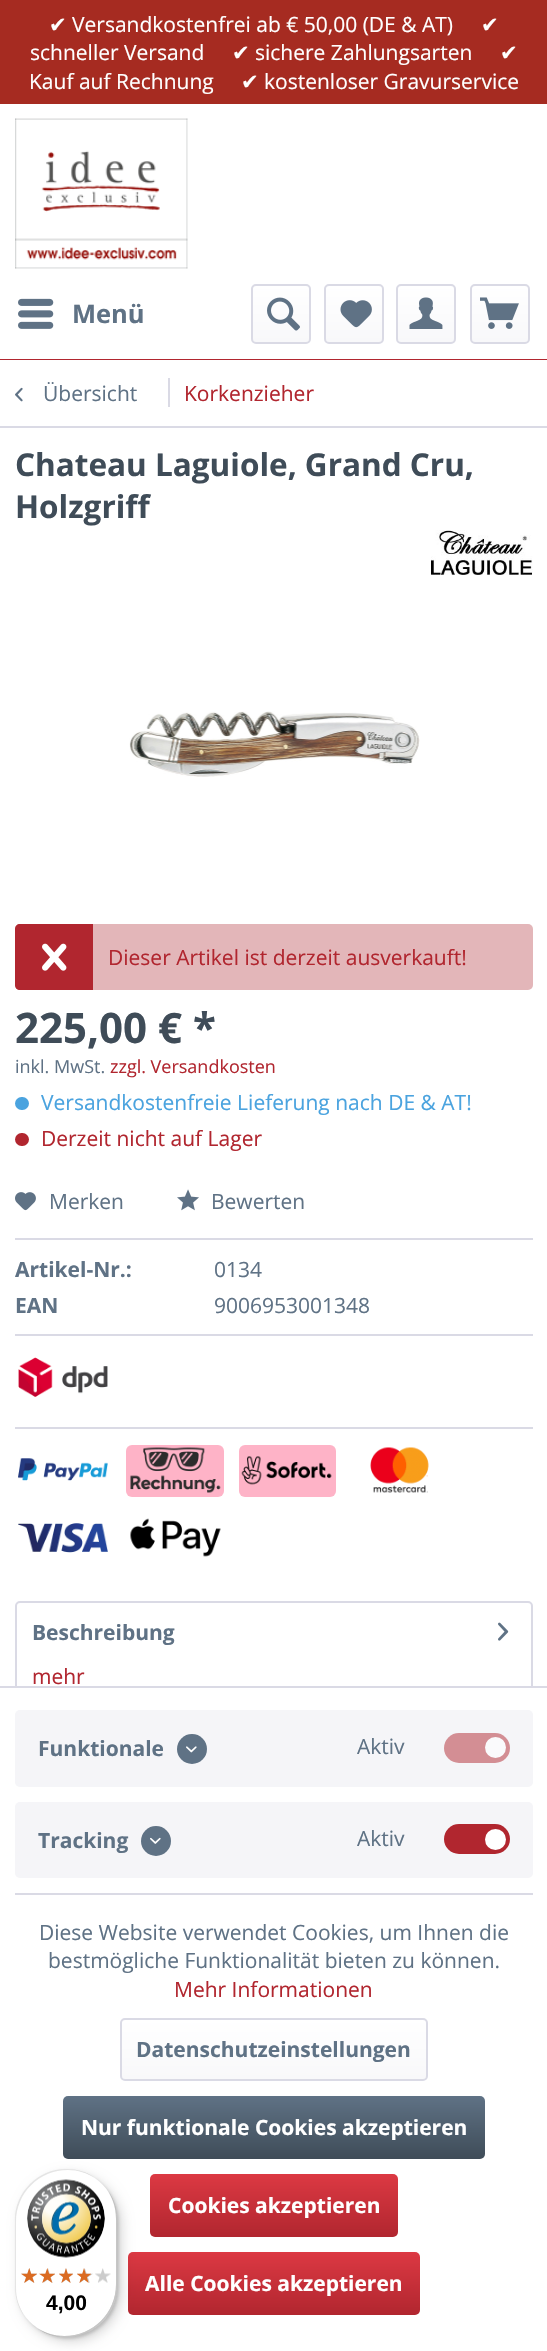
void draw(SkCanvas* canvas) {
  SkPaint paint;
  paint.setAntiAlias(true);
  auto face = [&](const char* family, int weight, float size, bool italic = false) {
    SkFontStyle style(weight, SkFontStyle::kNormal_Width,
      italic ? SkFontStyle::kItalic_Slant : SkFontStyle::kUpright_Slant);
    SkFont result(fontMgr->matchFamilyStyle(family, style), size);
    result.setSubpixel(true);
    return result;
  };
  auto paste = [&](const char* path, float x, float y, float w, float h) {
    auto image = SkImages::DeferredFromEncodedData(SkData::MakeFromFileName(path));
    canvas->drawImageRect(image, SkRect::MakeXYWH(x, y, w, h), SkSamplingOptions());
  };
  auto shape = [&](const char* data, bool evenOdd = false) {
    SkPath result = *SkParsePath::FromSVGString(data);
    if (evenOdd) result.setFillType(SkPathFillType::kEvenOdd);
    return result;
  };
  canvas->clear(0xffa62b21);
  paint.setColor(0xffffffff);
  canvas->drawRect(SkRect::MakeXYWH(0, 104, 547, 255), paint);
  paint.setColor(0xffb1262f);
  canvas->drawRect(SkRect::MakeXYWH(0, 359, 547, 1), paint);
  paste("img/1.png", 15, 118, 173, 151);
  paste("img/2.png", 18, 298, 36, 31);
  {
    const SkColor colors[] = {0xffffffff, 0xfff8f8fa};
    const float stops[] = {0, 1};
    const SkPoint ends[] = {{281, 285}, {281, 342}};
    paint.setShader(SkGradientShader::MakeLinear(ends, colors, stops, 2, SkTileMode::kClamp));
    paint.setAlpha(255);
  }
  canvas->drawRoundRect(SkRect::MakeXYWH(252, 285, 57, 57), 3, 3, paint);
  paint.setStroke(true);
  paint.setStrokeWidth(2);
  paint.setShader(nullptr);
  paint.setColor(0xffdadae5);
  canvas->drawRoundRect(SkRect::MakeXYWH(252, 285, 58, 58), 4, 4, paint);
  paste("img/3.png", 267, 297, 33, 34);
  paint.setStroke(false);
  {
    const SkColor colors[] = {0xffffffff, 0xfff8f8fa};
    const float stops[] = {0, 1};
    const SkPoint ends[] = {{354, 285}, {354, 342}};
    paint.setShader(SkGradientShader::MakeLinear(ends, colors, stops, 2, SkTileMode::kClamp));
    paint.setAlpha(255);
  }
  canvas->drawRoundRect(SkRect::MakeXYWH(326, 285, 57, 57), 3, 3, paint);
  paint.setStroke(true);
  paint.setShader(nullptr);
  paint.setColor(0xffdadae5);
  canvas->drawRoundRect(SkRect::MakeXYWH(325, 285, 58, 58), 4, 4, paint);
  paste("img/4.png", 340, 300, 32, 28);
  paint.setStroke(false);
  {
    const SkColor colors[] = {0xffffffff, 0xfff8f8fa};
    const float stops[] = {0, 1};
    const SkPoint ends[] = {{426, 285}, {426, 342}};
    paint.setShader(SkGradientShader::MakeLinear(ends, colors, stops, 2, SkTileMode::kClamp));
    paint.setAlpha(255);
  }
  canvas->drawRoundRect(SkRect::MakeXYWH(398, 285, 57, 57), 3, 3, paint);
  paint.setStroke(true);
  paint.setShader(nullptr);
  paint.setColor(0xffdadae5);
  canvas->drawRoundRect(SkRect::MakeXYWH(397, 285, 58, 58), 4, 4, paint);
  paste("img/5.png", 409, 297, 34, 32);
  paint.setStroke(false);
  {
    const SkColor colors[] = {0xffffffff, 0xfff8f8fa};
    const float stops[] = {0, 1};
    const SkPoint ends[] = {{500, 285}, {500, 342}};
    paint.setShader(SkGradientShader::MakeLinear(ends, colors, stops, 2, SkTileMode::kClamp));
    paint.setAlpha(255);
  }
  canvas->drawRoundRect(SkRect::MakeXYWH(471, 285, 57, 57), 3, 3, paint);
  paint.setStroke(true);
  paint.setShader(nullptr);
  paint.setColor(0xffdadae5);
  canvas->drawRoundRect(SkRect::MakeXYWH(471, 285, 58, 58), 4, 4, paint);
  paste("img/6.png", 480, 297, 39, 32);
  paint.setStroke(false);
  paint.setColor(0xffffffff);
  canvas->drawRect(SkRect::MakeXYWH(0, 360, 547, 1326), paint);
  paint.setColor(0xffdadae5);
  canvas->drawRect(SkRect::MakeXYWH(0, 426, 547, 2), paint);
  paste("img/7.png", 15, 387, 8, 15);
  canvas->drawRect(SkRect::MakeXYWH(168, 378, 2, 29), paint);
  paste("img/8.png", 431, 530, 102, 45);
  paste("img/9.png", 129, 711, 291, 66);
  paint.setColor(0xffe3b6b9);
  canvas->drawRoundRect(SkRect::MakeXYWH(15, 924, 518, 66), 5, 5, paint);
  paint.setColor(0xffb1262f);
  canvas->drawPath(shape("M20 924H93V990H20C17 990 15 988 15 985V929C15 926 17 924 20 924Z"), paint);
  paste("img/10.png", 42, 943, 25, 28);
  paint.setColor(0xff4aa3df);
  canvas->drawRoundRect(SkRect::MakeXYWH(15, 1097, 14, 13), 6.5f, 6.5f, paint);
  paint.setColor(0xffb1262f);
  canvas->drawRoundRect(SkRect::MakeXYWH(15, 1133, 14, 13), 6.5f, 6.5f, paint);
  paint.setColor(0xffdadae5);
  canvas->drawRect(SkRect::MakeXYWH(15, 1238, 518, 2), paint);
  paste("img/11.png", 15, 1192, 21, 19);
  paste("img/12.png", 177, 1189, 22, 22);
  canvas->drawRect(SkRect::MakeXYWH(15, 1334, 518, 2), paint);
  paste("img/13.png", 18, 1357, 90, 40);
  canvas->drawRect(SkRect::MakeXYWH(15, 1427, 518, 2), paint);
  paste("img/14.png", 18, 1458, 90, 23);
  paint.setColor(0xfffeb3c7);
  canvas->drawRoundRect(SkRect::MakeXYWH(126, 1445, 98, 52), 6, 6, paint);
  paste("img/15.png", 130, 1447, 91, 46);
  canvas->drawRoundRect(SkRect::MakeXYWH(239, 1445, 97, 52), 6, 6, paint);
  paste("img/16.png", 241, 1456, 91, 29);
  paste("img/17.png", 370, 1447, 59, 46);
  paste("img/18.png", 18, 1523, 90, 30);
  paste("img/19.png", 130, 1518, 91, 39);
  paint.setStroke(true);
  paint.setColor(0xffdadae5);
  canvas->drawRoundRect(SkRect::MakeXYWH(16, 1602, 516, 103), 4, 4, paint);
  paste("img/20.png", 498, 1622, 11, 19);
  paint.setStroke(false);
  {
    const struct { float x, y, w, h; SkColor color; } items[] = {
      {0, 1688, 547, 663, 0xffffffff},
      {0, 1686, 547, 2, 0xffdadae5},
      {15, 1893, 518, 2, 0xffdadae5},
    };
    for (auto [x, y, w, h, color] : items) {
      paint.setColor(color);
      canvas->drawRect(SkRect::MakeXYWH(x, y, w, h), paint);
    }
  }
  paint.setColor(0xfff5f5f8);
  canvas->drawRoundRect(SkRect::MakeXYWH(15, 1710, 518, 77), 5, 5, paint);
  paint.setColor(0xff5f7285);
  canvas->drawCircle(192, 1749, 15, paint);
  paste("img/21.png", 186, 1746, 11, 7);
  paint.setColor(0xffd38e94);
  canvas->drawRoundRect(SkRect::MakeXYWH(444, 1733, 66, 30), 15, 15, paint);
  paint.setColor(0xfffafafc);
  canvas->drawCircle(495.5f, 1747.5f, 10.5f, paint);
  paint.setColor(0xfff5f5f8);
  canvas->drawRoundRect(SkRect::MakeXYWH(15, 1802, 518, 76), 5, 5, paint);
  paint.setColor(0xff5f7285);
  canvas->drawCircle(156, 1841, 15, paint);
  paste("img/22.png", 150, 1837, 11, 7);
  paint.setColor(0xffb1262f);
  canvas->drawRoundRect(SkRect::MakeXYWH(444, 1824, 66, 30), 15, 15, paint);
  paint.setColor(0xffffffff);
  canvas->drawCircle(495.5f, 1839.5f, 10.5f, paint);
  {
    const SkColor colors[] = {0xffffffff, 0xfff8f8fa};
    const float stops[] = {0, 1};
    const SkPoint ends[] = {{274, 2019}, {274, 2079}};
    paint.setShader(SkGradientShader::MakeLinear(ends, colors, stops, 2, SkTileMode::kClamp));
    paint.setAlpha(255);
  }
  canvas->drawRoundRect(SkRect::MakeXYWH(122, 2019, 304, 60), 3, 3, paint);
  paint.setStroke(true);
  paint.setShader(nullptr);
  paint.setColor(0xffdadae5);
  canvas->drawRoundRect(SkRect::MakeXYWH(121, 2019, 306, 61), 4, 4, paint);
  paint.setStroke(false);
  {
    const SkColor colors[] = {0xff5f7285, 0xff3f4c58};
    const float stops[] = {0, 1};
    const SkPoint ends[] = {{274, 2096}, {274, 2159}};
    paint.setShader(SkGradientShader::MakeLinear(ends, colors, stops, 2, SkTileMode::kClamp));
    paint.setAlpha(255);
  }
  canvas->drawRoundRect(SkRect::MakeXYWH(63, 2096, 422, 63), 5, 5, paint);
  {
    const SkColor colors[] = {0xffdc3943, 0xffb1262f};
    const float stops[] = {0, 1};
    const SkPoint ends[] = {{274, 2174}, {274, 2237}};
    paint.setShader(SkGradientShader::MakeLinear(ends, colors, stops, 2, SkTileMode::kClamp));
    paint.setAlpha(255);
  }
  canvas->drawRoundRect(SkRect::MakeXYWH(150, 2174, 248, 63), 5, 5, paint);
  {
    const SkColor colors[] = {0xffdc3943, 0xffb1262f};
    const float stops[] = {0, 1};
    const SkPoint ends[] = {{274, 2252}, {274, 2315}};
    paint.setShader(SkGradientShader::MakeLinear(ends, colors, stops, 2, SkTileMode::kClamp));
    paint.setAlpha(255);
  }
  canvas->drawRoundRect(SkRect::MakeXYWH(128, 2252, 292, 63), 5, 5, paint);
  paint.setShader(nullptr);
  paint.setColor(0x26000000);
  paint.setMaskFilter(SkMaskFilter::MakeBlur(kNormal_SkBlurStyle, 6));
  canvas->drawRoundRect(SkRect::MakeXYWH(20, 2174, 102, 168), 51, 51, paint);
  paint.setMaskFilter(nullptr);
  paint.setMaskFilter(SkMaskFilter::MakeBlur(kNormal_SkBlurStyle, 1.5f));
  canvas->drawRoundRect(SkRect::MakeXYWH(17, 2171, 102, 168), 51, 51, paint);
  paint.setMaskFilter(nullptr);
  paint.setColor(0xffffffff);
  canvas->drawRoundRect(SkRect::MakeXYWH(15, 2169, 102, 168), 51, 51, paint);
  paint.setColor(0x1a000000);
  canvas->drawPath(shape("M68 2170C78 2170 87 2173 95 2178C87 2172 77 2169 66 2169C38 2169 15 2192 15 2220V2286C15 2297 18 2307 24 2315C19 2307 16 2298 16 2288V2222C16 2193 39 2170 68 2170Z"), paint);
  paint.setColor(0x33000000);
  canvas->drawPath(shape("M37 2328C45 2334 55 2337 66 2337C94 2337 117 2314 117 2286V2220C117 2209 114 2199 108 2191C113 2199 116 2208 116 2218V2284C116 2313 93 2336 64 2336C54 2336 45 2333 37 2328Z"), paint);
  paint.setColor(0x33323232);
  canvas->drawPath(shape("M27 2319C37 2330 51 2337 66 2337C94 2337 117 2314 117 2286V2220C117 2205 110 2191 99 2181C110 2191 116 2204 116 2219V2285C116 2313 93 2336 65 2336C50 2336 37 2330 27 2319Z"), paint);
  paint.setColor(0x4dffffff);
  canvas->drawPath(shape("M27 2319C37 2330 51 2337 66 2337C94 2337 117 2314 117 2286V2220C117 2205 110 2191 99 2181C110 2191 116 2204 116 2219V2285C116 2313 93 2336 65 2336C50 2336 37 2330 27 2319Z"), paint);
  paste("img/23.png", 27, 2179, 78, 79);
  paste("img/24.png", 21, 2268, 16, 15);
  paste("img/25.png", 41, 2268, 14, 15);
  paste("img/26.png", 59, 2268, 14, 15);
  paste("img/27.png", 77, 2268, 16, 15);
  paste("img/28.png", 95, 2268, 16, 15);
  paste("img/29.png", 21, 2268, 16, 15);
  paste("img/30.png", 39, 2268, 16, 15);
  paste("img/31.png", 59, 2268, 14, 15);
  paste("img/32.png", 77, 2268, 14, 15);
  auto f0 = face("DejaVu Sans", 400, 21);
  paint.setColor(0xffffffff);
  canvas->drawString("✔", 49, 32, f0, paint);
  auto f1 = face("Open Sans", 400, 21);
  canvas->drawString("Versandkostenfrei ab € 50,00 (DE & AT)", 72, 32, f1, paint);
  canvas->drawString("✔", 481, 32, f0, paint);
  canvas->drawString("schneller Versand", 30, 60, f1, paint);
  canvas->drawString("✔", 232, 60, f0, paint);
  canvas->drawString("sichere Zahlungsarten", 255, 60, f1, paint);
  canvas->drawString("✔", 500, 60, f0, paint);
  canvas->drawString("Kauf auf Rechnung", 29, 89, f1, paint);
  canvas->drawString("✔", 241, 89, f0, paint);
  canvas->drawString("kostenloser Gravurservice", 264, 89, f1, paint);
  auto f2 = face("Open Sans", 700, 25.5f);
  paint.setColor(0xff5f7285);
  canvas->drawString("Menü", 72, 323, f2, paint);
  canvas->drawString("Übersicht", 43, 401, f1, paint);
  paint.setColor(0xffb1262f);
  canvas->drawString("Korkenzieher", 184, 401, f1, paint);
  auto f3 = face("Open Sans", 700, 31.5f);
  paint.setColor(0xff3f4c58);
  canvas->drawString("Chateau Laguiole, Grand Cru,", 15, 476, f3, paint);
  canvas->drawString("Holzgriff", 15, 518, f3, paint);
  paint.setColor(0xffb1262f);
  canvas->drawString("Dieser Artikel ist derzeit ausverkauft!", 108, 965, f1, paint);
  auto f4 = face("Open Sans", 700, 42);
  paint.setColor(0xff3f4c58);
  canvas->drawString("225,00 € *", 15, 1043, f4, paint);
  auto f5 = face("Open Sans", 400, 18);
  paint.setColor(0xff5f7285);
  canvas->drawString("inkl. MwSt.", 15, 1073, f5, paint);
  paint.setColor(0xffb1262f);
  canvas->drawString("zzgl. Versandkosten", 110, 1073, f5, paint);
  paint.setColor(0xff4aa3df);
  canvas->drawString("Versandkostenfreie Lieferung nach DE & AT!", 41, 1110, f1, paint);
  paint.setColor(0xffb1262f);
  canvas->drawString("Derzeit nicht auf Lager", 41, 1146, f1, paint);
  paint.setColor(0xff5f7285);
  canvas->drawString("Merken", 49, 1209, f1, paint);
  canvas->drawString("Bewerten", 211, 1209, f1, paint);
  auto f6 = face("Open Sans", 700, 21);
  canvas->drawString("Artikel-Nr.:", 15, 1277, f6, paint);
  canvas->drawString("0134", 214, 1277, f1, paint);
  canvas->drawString("EAN", 15, 1313, f6, paint);
  canvas->drawString("9006953001348", 214, 1313, f1, paint);
  canvas->drawString("Beschreibung", 32, 1640, f6, paint);
  paint.setColor(0xffb1262f);
  canvas->drawString("mehr", 32, 1684, f1, paint);
  paint.setColor(0xff5f7285);
  canvas->drawString("Funktionale", 38, 1756, f6, paint);
  canvas->drawString("Aktiv", 357, 1754, f1, paint);
  canvas->drawString("Tracking", 38, 1848, f6, paint);
  {
    const struct { const char* s; float x, y; } items[] = {
      {"Aktiv", 357, 1846},
      {"Diese Website verwendet Cookies, um Ihnen die", 39, 1940},
      {"bestmögliche Funktionalität bieten zu können.", 48, 1968},
    };
    for (auto [s, x, y] : items) {
      canvas->drawString(s, x, y, f1, paint);
    }
  }
  paint.setColor(0xffb1262f);
  canvas->drawString("Mehr Informationen", 174, 1997, f1, paint);
  paint.setColor(0xff5f7285);
  canvas->drawString("Datenschutzeinstellungen", 136, 2057, f6, paint);
  paint.setColor(0xffffffff);
  {
    const struct { const char* s; float x, y; } items[] = {
      {"Nur funktionale Cookies akzeptieren", 81, 2135},
      {"Cookies akzeptieren", 168, 2213},
      {"Alle Cookies akzeptieren", 145, 2291},
    };
    for (auto [s, x, y] : items) {
      canvas->drawString(s, x, y, f6, paint);
    }
  }
  auto f7 = face("Liberation Sans", 700, 21);
  paint.setColor(0xff000000);
  canvas->drawString("4,00", 46, 2310, f7, paint);
}
